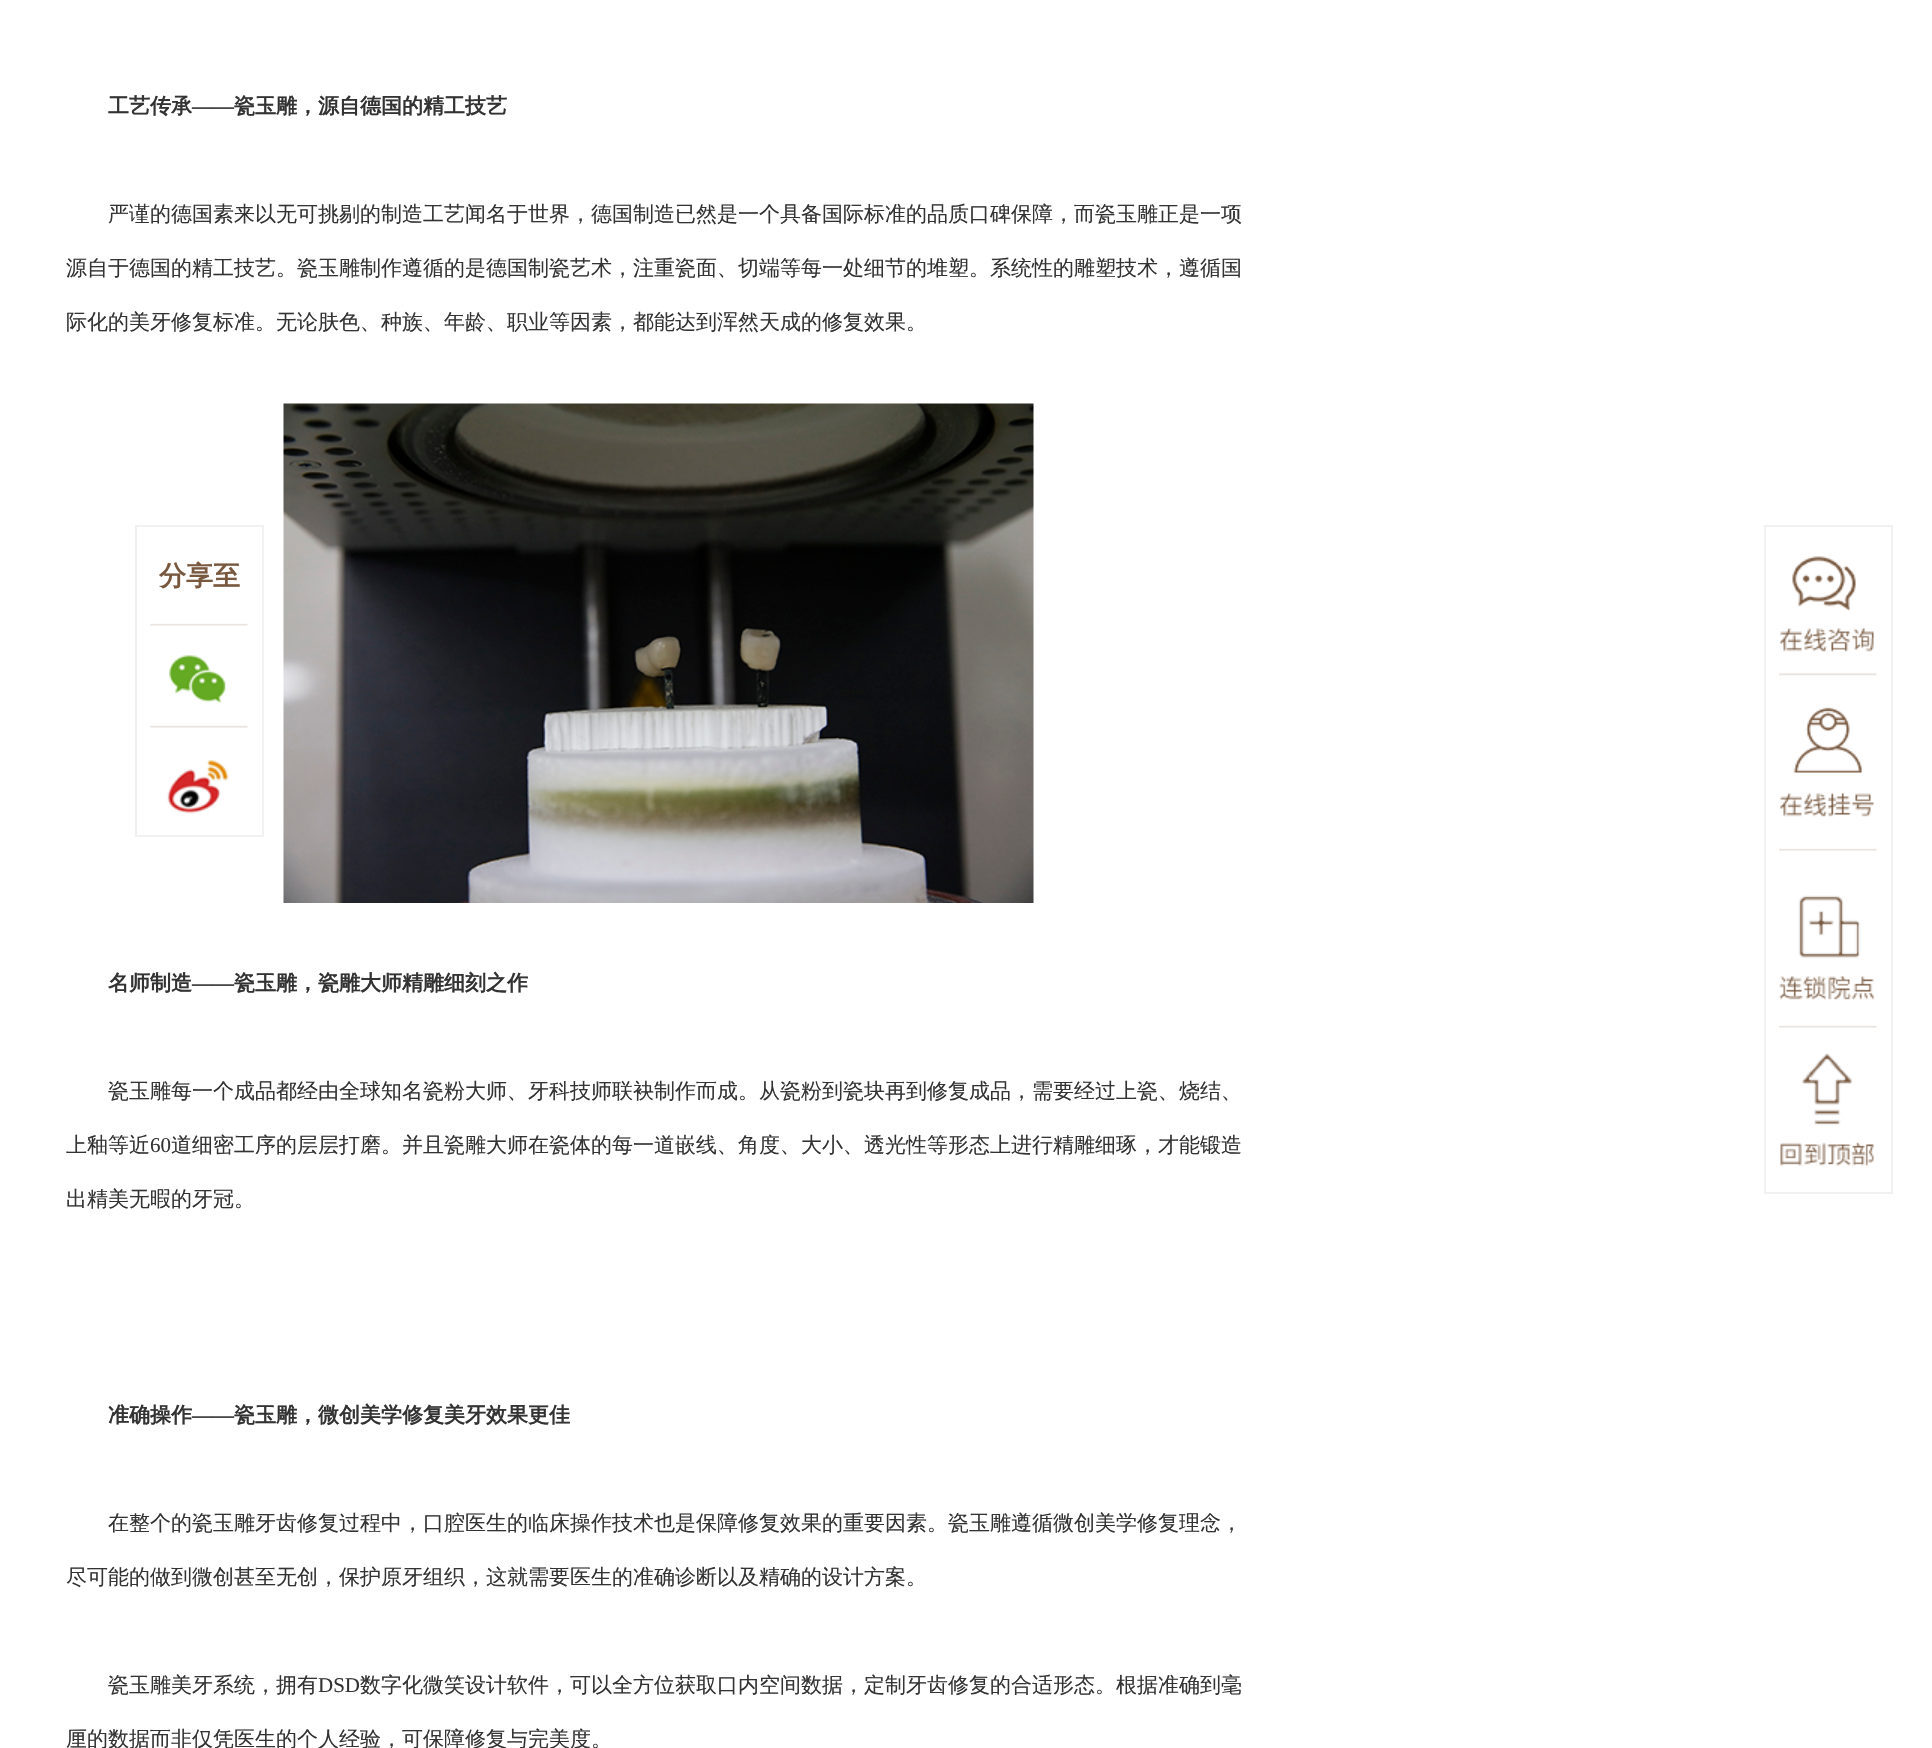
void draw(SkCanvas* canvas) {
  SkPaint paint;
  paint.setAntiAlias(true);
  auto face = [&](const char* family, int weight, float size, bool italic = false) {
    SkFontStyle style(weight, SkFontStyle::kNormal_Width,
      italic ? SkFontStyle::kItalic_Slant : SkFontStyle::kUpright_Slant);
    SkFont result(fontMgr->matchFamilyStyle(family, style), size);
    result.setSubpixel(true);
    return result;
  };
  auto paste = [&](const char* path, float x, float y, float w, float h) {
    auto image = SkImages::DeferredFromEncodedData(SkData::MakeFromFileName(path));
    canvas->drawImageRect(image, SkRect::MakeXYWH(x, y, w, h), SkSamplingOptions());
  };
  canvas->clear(0xffffffff);
  paste("img/1.png", 283, 403, 751, 500);
  paste("img/2.png", 1779, 556, 98, 610);
  paint.setStroke(true);
  paint.setStrokeWidth(2);
  paint.setColor(0xfff1f1f1);
  canvas->drawRect(SkRect::MakeXYWH(1765, 526, 127, 667), paint);
  paste("img/3.png", 150, 623, 98, 191);
  canvas->drawRect(SkRect::MakeXYWH(136, 526, 127, 310), paint);
  auto f0 = face("WenQuanYi Zen Hei", 700, 21);
  paint.setStroke(false);
  paint.setColor(0xff333333);
  canvas->drawString("工艺传承", 108, 113, f0, paint);
  auto f1 = face("Liberation Serif", 700, 21);
  canvas->drawString("——", 192, 113, f1, paint);
  canvas->drawString("瓷玉雕，源自德国的精工技艺", 234, 113, f0, paint);
  auto f2 = face("WenQuanYi Zen Hei", 500, 21);
  {
    const struct { const char* s; float x, y; } items[] = {
      {"严谨的德国素来以无可挑剔的制造工艺闻名于世界，德国制造已然是一个具备国际标准的品质口碑保障，而瓷玉雕正是一项", 108, 221},
      {"源自于德国的精工技艺。瓷玉雕制作遵循的是德国制瓷艺术，注重瓷面、切端等每一处细节的堆塑。系统性的雕塑技术，遵循国", 66, 275},
      {"际化的美牙修复标准。无论肤色、种族、年龄、职业等因素，都能达到浑然天成的修复效果。", 66, 329},
    };
    for (auto [s, x, y] : items) {
      canvas->drawString(s, x, y, f2, paint);
    }
  }
  canvas->drawString("名师制造", 108, 990, f0, paint);
  canvas->drawString("——", 192, 990, f1, paint);
  canvas->drawString("瓷玉雕，瓷雕大师精雕细刻之作", 234, 990, f0, paint);
  canvas->drawString("瓷玉雕每一个成品都经由全球知名瓷粉大师、牙科技师联袂制作而成。从瓷粉到瓷块再到修复成品，需要经过上瓷、烧结、", 108, 1098, f2, paint);
  canvas->drawString("上釉等近", 66, 1152, f2, paint);
  auto f3 = face("Liberation Serif", 400, 21);
  canvas->drawString("60", 150, 1152, f3, paint);
  canvas->drawString("道细密工序的层层打磨。并且瓷雕大师在瓷体的每一道嵌线、角度、大小、透光性等形态上进行精雕细琢，才能锻造", 171, 1152, f2, paint);
  canvas->drawString("出精美无暇的牙冠。", 66, 1206, f2, paint);
  canvas->drawString("准确操作", 108, 1422, f0, paint);
  canvas->drawString("——", 192, 1422, f1, paint);
  canvas->drawString("瓷玉雕，微创美学修复美牙效果更佳", 234, 1422, f0, paint);
  {
    const struct { const char* s; float x, y; } items[] = {
      {"在整个的瓷玉雕牙齿修复过程中，口腔医生的临床操作技术也是保障修复效果的重要因素。瓷玉雕遵循微创美学修复理念，", 108, 1530},
      {"尽可能的做到微创甚至无创，保护原牙组织，这就需要医生的准确诊断以及精确的设计方案。", 66, 1584},
      {"瓷玉雕美牙系统，拥有", 108, 1692},
    };
    for (auto [s, x, y] : items) {
      canvas->drawString(s, x, y, f2, paint);
    }
  }
  canvas->drawString("DSD", 318, 1692, f3, paint);
  canvas->drawString("数字化微笑设计软件，可以全方位获取口内空间数据，定制牙齿修复的合适形态。根据准确到毫", 360, 1692, f2, paint);
  canvas->drawString("厘的数据而非仅凭医生的个人经验，可保障修复与完美度。", 66, 1746, f2, paint);
  auto f4 = face("WenQuanYi Zen Hei", 700, 27);
  paint.setColor(0xff78583f);
  canvas->drawString("分享至", 159, 585, f4, paint);
}
